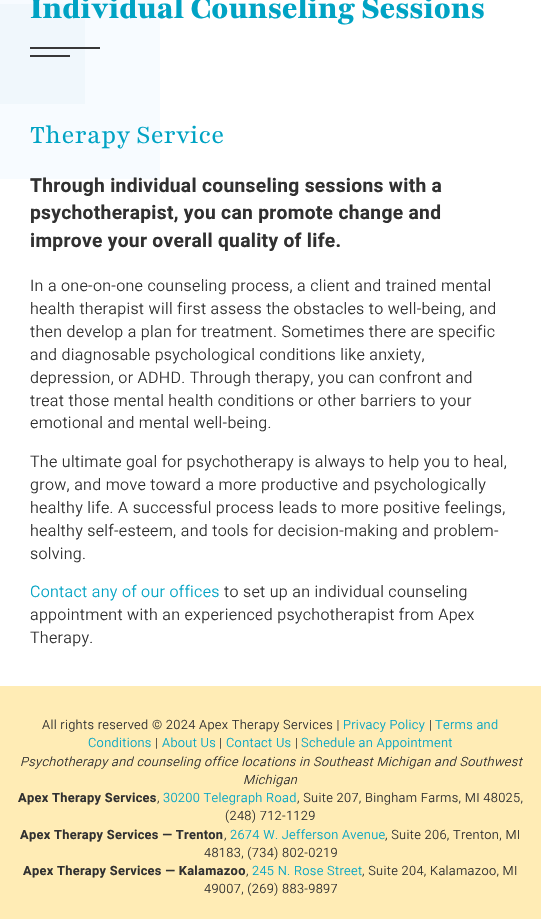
void draw(SkCanvas* canvas) {
  SkPaint paint;
  paint.setAntiAlias(true);
  auto face = [&](const char* family, int weight, float size, bool italic = false) {
    SkFontStyle style(weight, SkFontStyle::kNormal_Width,
      italic ? SkFontStyle::kItalic_Slant : SkFontStyle::kUpright_Slant);
    SkFont result(fontMgr->matchFamilyStyle(family, style), size);
    result.setSubpixel(true);
    return result;
  };
  auto writeSpaced = [&](const char* s, float x, float y, const SkFont& font, const SkPaint& ink, float letter, float word) {
    std::vector<SkGlyphID> glyphs(font.countText(s, strlen(s), SkTextEncoding::kUTF8));
    std::vector<float> xs(glyphs.size());
    font.textToGlyphs(s, strlen(s), SkTextEncoding::kUTF8, glyphs);
    font.getXPos(glyphs, xs, x);
    float extra = 0;
    for (size_t i = 0; i < glyphs.size(); i++) {
      xs[i] += extra;
      extra += letter + word * (glyphs[i] == font.unicharToGlyph(' '));
    }
    canvas->drawTextBlob(SkTextBlob::MakeFromPosHGlyphs(glyphs, xs, y, font), 0, 0, ink);
  };
  canvas->clear(0xffffffff);
  {
    const struct { float x, y, w, h; SkColor color; } items[] = {
      {0, 0, 160, 179, 0xfff7fbff},
      {0, 4, 85, 100, 0xfff0f7fc},
      {30, 47, 70, 2, 0xff383838},
      {30, 55, 40, 2, 0xff383838},
      {0, 686, 541, 233, 0xffffecb5},
    };
    for (auto [x, y, w, h, color] : items) {
      paint.setColor(color);
      canvas->drawRect(SkRect::MakeXYWH(x, y, w, h), paint);
    }
  }
  auto f0 = face("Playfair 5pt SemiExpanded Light", 900, 34);
  paint.setColor(0xff00a3c4);
  canvas->drawString("Individual Counseling Sessions", 30, 18, f0, paint);
  auto f1 = face("Playfair 5pt SemiExpanded Light", 400, 28);
  canvas->drawString("Therapy Service", 30, 143, f1, paint);
  auto f2 = face("Heebo", 700, 19.2f);
  paint.setColor(0xff313131);
  {
    const struct { const char* s; float x, y; } items[] = {
      {"Through individual counseling sessions with a", 30, 192},
      {"psychotherapist, you can promote change and", 30, 219},
      {"improve your overall quality of life.", 30, 247},
    };
    for (auto [s, x, y] : items) {
      writeSpaced(s, x, y, f2, paint, 0.3f, 0);
    }
  }
  auto f3 = face("Heebo", 300, 16);
  {
    const struct { const char* s; float x, y; } items[] = {
      {"In a one-on-one counseling process, a client and trained mental", 30, 291},
      {"health therapist will first assess the obstacles to well-being, and", 30, 314},
      {"then develop a plan for treatment. Sometimes there are specific", 30, 337},
      {"and diagnosable psychological conditions like anxiety,", 30, 360},
      {"depression, or ADHD. Through therapy, you can confront and", 30, 383},
      {"treat those mental health conditions or other barriers to your", 30, 406},
      {"emotional and mental well-being.", 30, 428},
      {"The ultimate goal for psychotherapy is always to help you to heal,", 30, 467},
      {"grow, and move toward a more productive and psychologically", 30, 490},
      {"healthy life. A successful process leads to more positive feelings,", 30, 513},
      {"healthy self-esteem, and tools for decision-making and problem-", 30, 536},
      {"solving.", 30, 559},
    };
    for (auto [s, x, y] : items) {
      writeSpaced(s, x, y, f3, paint, 0.3f, 0);
    }
  }
  paint.setColor(0xff00a3c4);
  writeSpaced("Contact any of our offices", 30, 597, f3, paint, 0.3f, 0);
  paint.setColor(0xff313131);
  {
    const struct { const char* s; float x, y; } items[] = {
      {"to set up an individual counseling", 224, 597},
      {"appointment with an experienced psychotherapist from Apex", 30, 620},
      {"Therapy.", 30, 643},
    };
    for (auto [s, x, y] : items) {
      writeSpaced(s, x, y, f3, paint, 0.3f, 0);
    }
  }
  auto f4 = face("Heebo", 300, 12.8f);
  writeSpaced("All rights reserved © 2024 Apex Therapy Services |", 42, 729, f4, paint, 0.3f, 0);
  paint.setColor(0xff00a3c4);
  writeSpaced("Privacy Policy", 343, 729, f4, paint, 0.3f, 0);
  paint.setColor(0xff313131);
  writeSpaced("|", 429, 729, f4, paint, 0.3f, 0);
  paint.setColor(0xff00a3c4);
  writeSpaced("Terms and", 435, 729, f4, paint, 0.3f, 0);
  writeSpaced("Conditions", 88, 747, f4, paint, 0.3f, 0);
  paint.setColor(0xff313131);
  writeSpaced("|", 155, 747, f4, paint, 0.3f, 0);
  paint.setColor(0xff00a3c4);
  writeSpaced("About Us", 162, 747, f4, paint, 0.3f, 0);
  paint.setColor(0xff313131);
  writeSpaced("|", 219, 747, f4, paint, 0.3f, 0);
  paint.setColor(0xff00a3c4);
  writeSpaced("Contact Us", 226, 747, f4, paint, 0.3f, 0);
  paint.setColor(0xff313131);
  writeSpaced("|", 295, 747, f4, paint, 0.3f, 0);
  paint.setColor(0xff00a3c4);
  writeSpaced("Schedule an Appointment", 301, 747, f4, paint, 0.3f, 0);
  auto f5 = face("Heebo", 300, 12.8f, true);
  paint.setColor(0xff313131);
  writeSpaced("Psychotherapy and counseling office locations in Southeast Michigan and Southwest", 20, 766, f5, paint, 0.3f, 0);
  writeSpaced("Michigan", 243, 784, f5, paint, 0.3f, 0);
  auto f6 = face("Heebo", 700, 12.8f);
  writeSpaced("Apex Therapy Services", 18, 802, f6, paint, 0.3f, 0);
  writeSpaced(",", 157, 802, f4, paint, 0.3f, 0);
  paint.setColor(0xff00a3c4);
  writeSpaced("30200 Telegraph Road", 163, 802, f4, paint, 0.3f, 0);
  paint.setColor(0xff313131);
  writeSpaced(", Suite 207, Bingham Farms, MI 48025,", 297, 802, f4, paint, 0.3f, 0);
  writeSpaced("(248) 712-1129", 225, 820, f4, paint, 0.3f, 0);
  writeSpaced("Apex Therapy Services — Trenton", 20, 839, f6, paint, 0.3f, 0);
  writeSpaced(",", 224, 839, f4, paint, 0.3f, 0);
  paint.setColor(0xff00a3c4);
  writeSpaced("2674 W. Jefferson Avenue", 230, 839, f4, paint, 0.3f, 0);
  paint.setColor(0xff313131);
  writeSpaced(", Suite 206, Trenton, MI", 385, 839, f4, paint, 0.3f, 0);
  writeSpaced("48183, (734) 802-0219", 204, 857, f4, paint, 0.3f, 0);
  writeSpaced("Apex Therapy Services — Kalamazoo", 23, 875, f6, paint, 0.3f, 0);
  writeSpaced(",", 246, 875, f4, paint, 0.3f, 0);
  paint.setColor(0xff00a3c4);
  writeSpaced("245 N. Rose Street", 252, 875, f4, paint, 0.3f, 0);
  paint.setColor(0xff313131);
  writeSpaced(", Suite 204, Kalamazoo, MI", 362, 875, f4, paint, 0.3f, 0);
  writeSpaced("49007, (269) 883-9897", 204, 893, f4, paint, 0.3f, 0);
}
